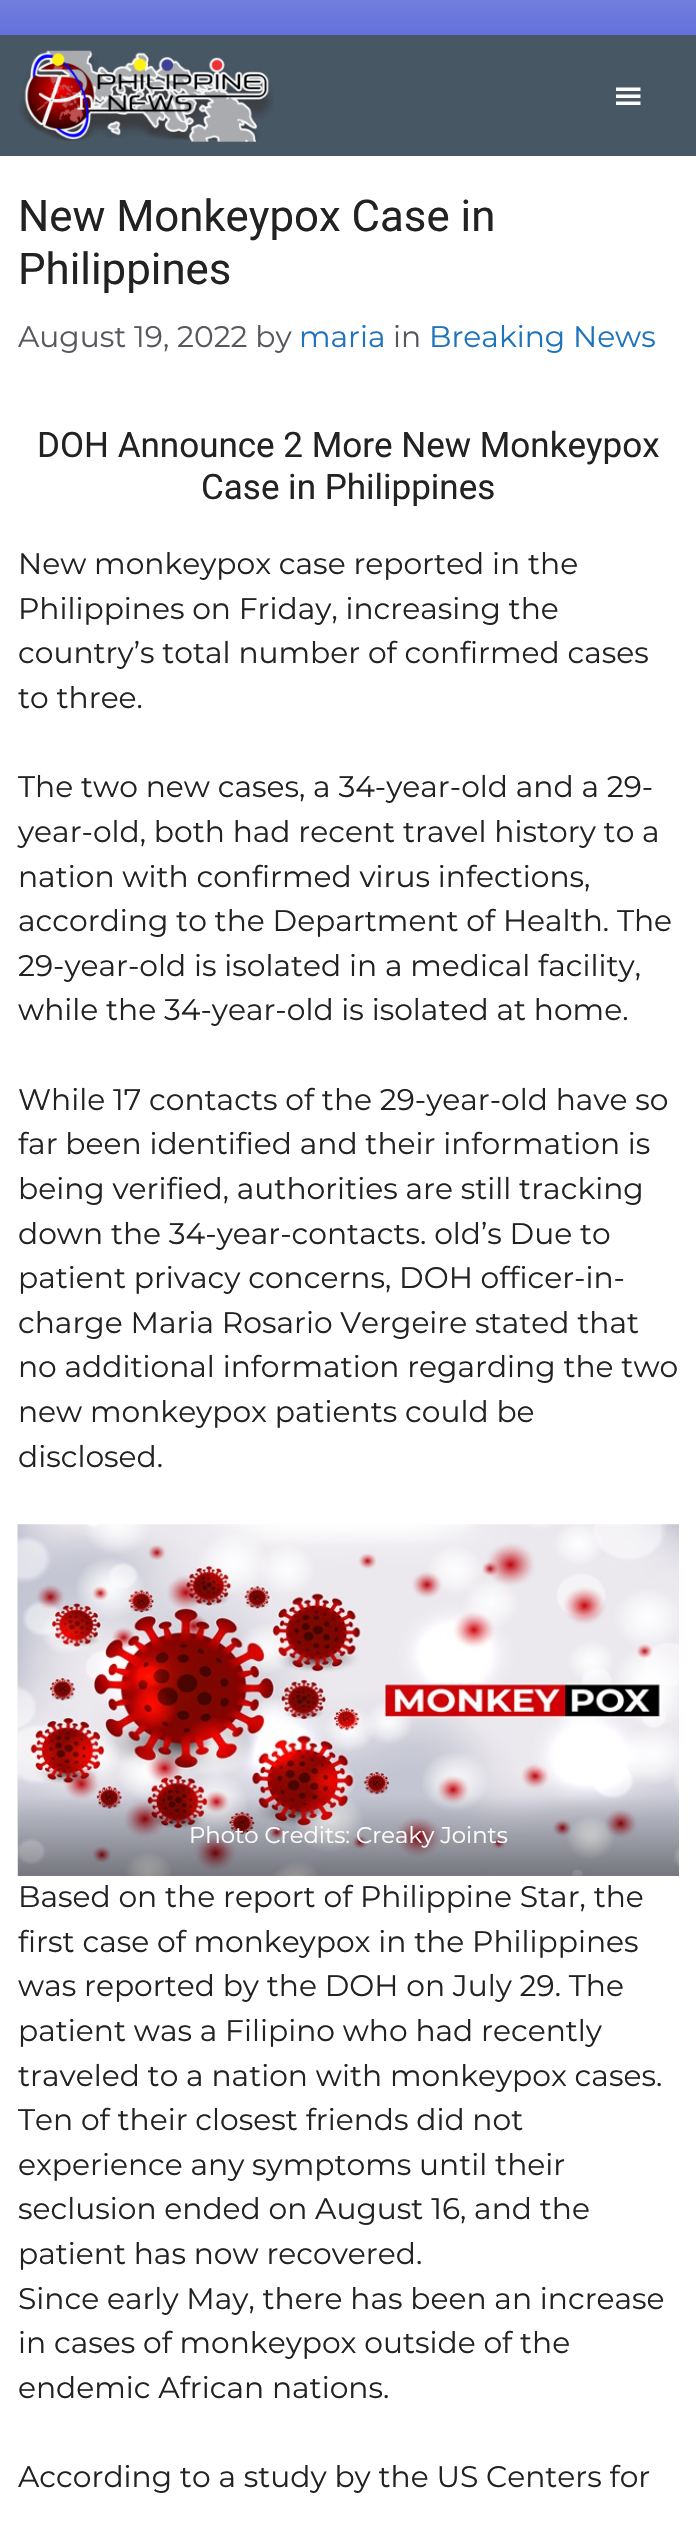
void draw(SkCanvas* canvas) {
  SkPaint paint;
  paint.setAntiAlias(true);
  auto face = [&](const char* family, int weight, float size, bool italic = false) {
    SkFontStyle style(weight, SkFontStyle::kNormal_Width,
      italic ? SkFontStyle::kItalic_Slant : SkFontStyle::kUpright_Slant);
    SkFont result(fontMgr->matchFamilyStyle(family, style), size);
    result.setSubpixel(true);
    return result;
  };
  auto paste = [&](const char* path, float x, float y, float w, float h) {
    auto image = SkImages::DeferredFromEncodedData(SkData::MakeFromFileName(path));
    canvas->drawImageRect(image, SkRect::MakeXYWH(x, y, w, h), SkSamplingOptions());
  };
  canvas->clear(0xffffffff);
  {
    const SkColor colors[] = {0xff717edb, 0xff3744e7};
    const float stops[] = {0, 1};
    const SkPoint ends[] = {{348, 0}, {348, 156}};
    paint.setShader(SkGradientShader::MakeLinear(ends, colors, stops, 2, SkTileMode::kClamp));
    paint.setAlpha(255);
  }
  canvas->drawRect(SkRect::MakeXYWH(0, 0, 696, 35), paint);
  paint.setShader(nullptr);
  paint.setColor(0xff475764);
  canvas->drawRect(SkRect::MakeXYWH(0, 35, 696, 121), paint);
  paste("img/1.png", 19, 50, 255, 92);
  paste("img/2.png", 616, 87, 25, 18);
  paste("img/3.png", 17, 1524, 662, 352);
  auto f0 = face("Roboto", 400, 43.75f);
  paint.setColor(0xff222222);
  canvas->drawString("New Monkeypox Case in", 18, 231, f0, paint);
  canvas->drawString("Philippines", 18, 284, f0, paint);
  auto f1 = face("Montserrat", 400, 29.75f);
  paint.setColor(0xff575760);
  canvas->drawString("August 19, 2022 by", 18, 347, f1, paint);
  paint.setColor(0xff1e73be);
  canvas->drawString("maria", 299, 347, f1, paint);
  paint.setColor(0xff575760);
  canvas->drawString("in", 393, 347, f1, paint);
  paint.setColor(0xff1e73be);
  canvas->drawString("Breaking News", 429, 347, f1, paint);
  auto f2 = face("Roboto", 400, 35);
  paint.setColor(0xff222222);
  canvas->drawString("DOH Announce 2 More New Monkeypox", 37, 457, f2, paint);
  canvas->drawString("Case in Philippines", 201, 499, f2, paint);
  {
    const struct { const char* s; float x, y; } items[] = {
      {"New monkeypox case reported in the", 18, 574},
      {"Philippines on Friday, increasing the", 18, 619},
      {"country’s total number of confirmed cases", 18, 663},
      {"to three.", 18, 708},
      {"The two new cases, a 34-year-old and a 29-", 18, 797},
      {"year-old, both had recent travel history to a", 18, 842},
      {"nation with confirmed virus infections,", 18, 887},
      {"according to the Department of Health. The", 18, 931},
      {"29-year-old is isolated in a medical facility,", 18, 976},
      {"while the 34-year-old is isolated at home.", 18, 1020},
      {"While 17 contacts of the 29-year-old have so", 18, 1110},
      {"far been identified and their information is", 18, 1154},
      {"being verified, authorities are still tracking", 18, 1199},
      {"down the 34-year-contacts. old’s Due to", 18, 1244},
      {"patient privacy concerns, DOH officer-in-", 18, 1288},
      {"charge Maria Rosario Vergeire stated that", 18, 1333},
      {"no additional information regarding the two", 18, 1377},
      {"new monkeypox patients could be", 18, 1422},
      {"disclosed.", 18, 1467},
    };
    for (auto [s, x, y] : items) {
      canvas->drawString(s, x, y, f1, paint);
    }
  }
  auto f3 = face("Montserrat", 400, 22.75f);
  paint.setColor(0xffffffff);
  canvas->drawString("Photo Credits: Creaky Joints", 189, 1843, f3, paint);
  paint.setColor(0xff222222);
  {
    const struct { const char* s; float x, y; } items[] = {
      {"Based on the report of Philippine Star, the", 18, 1907},
      {"first case of monkeypox in the Philippines", 18, 1952},
      {"was reported by the DOH on July 29. The", 18, 1996},
      {"patient was a Filipino who had recently", 18, 2041},
      {"traveled to a nation with monkeypox cases.", 18, 2086},
      {"Ten of their closest friends did not", 18, 2130},
      {"experience any symptoms until their", 18, 2175},
      {"seclusion ended on August 16, and the", 18, 2219},
      {"patient has now recovered.", 18, 2264},
      {"Since early May, there has been an increase", 18, 2309},
      {"in cases of monkeypox outside of the", 18, 2353},
      {"endemic African nations.", 18, 2398},
      {"According to a study by the US Centers for", 18, 2487},
    };
    for (auto [s, x, y] : items) {
      canvas->drawString(s, x, y, f1, paint);
    }
  }
}
